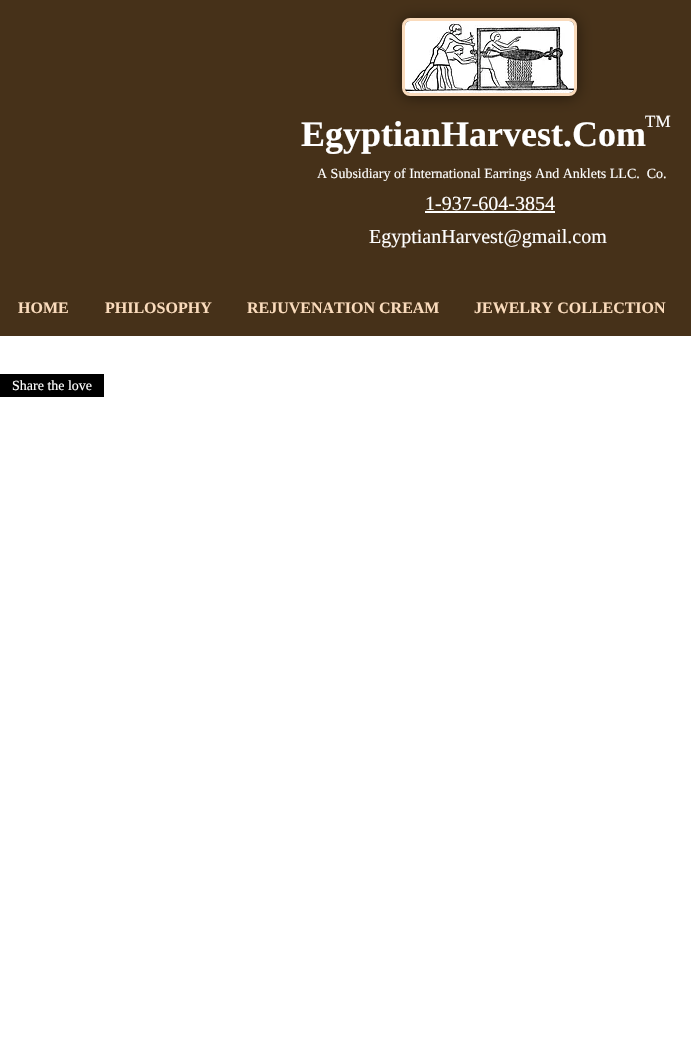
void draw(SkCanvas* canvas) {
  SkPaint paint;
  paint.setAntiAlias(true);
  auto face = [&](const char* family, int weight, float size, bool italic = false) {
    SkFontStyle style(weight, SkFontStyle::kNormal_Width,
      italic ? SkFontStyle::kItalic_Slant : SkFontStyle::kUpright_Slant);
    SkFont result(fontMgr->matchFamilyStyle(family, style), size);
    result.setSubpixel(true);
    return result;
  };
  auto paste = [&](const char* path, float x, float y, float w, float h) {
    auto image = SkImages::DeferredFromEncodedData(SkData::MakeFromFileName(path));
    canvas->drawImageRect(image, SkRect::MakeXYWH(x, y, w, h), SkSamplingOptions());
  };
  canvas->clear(0xffffffff);
  paint.setColor(0xff463119);
  canvas->drawRect(SkRect::MakeXYWH(0, 0, 691, 336), paint);
  paint.setColor(0x80000000);
  paint.setMaskFilter(SkMaskFilter::MakeBlur(kNormal_SkBlurStyle, 7.5f));
  canvas->drawRoundRect(SkRect::MakeXYWH(402, 19, 175, 78), 8, 8, paint);
  paint.setMaskFilter(nullptr);
  paint.setStroke(true);
  paint.setStrokeWidth(3);
  paint.setColor(0xfffadbbc);
  canvas->drawRoundRect(SkRect::MakeXYWH(403.5f, 19.5f, 172, 75), 6.5f, 6.5f, paint);
  paste("img/1.png", 405, 21, 169, 72);
  paint.setStroke(false);
  paint.setColor(0xffffffff);
  canvas->drawRect(SkRect::MakeXYWH(425, 211, 130, 2), paint);
  paint.setColor(0xff000000);
  canvas->drawRect(SkRect::MakeXYWH(0, 374, 104, 23), paint);
  auto f0 = face("Liberation Serif", 700, 36);
  paint.setColor(0xffffffff);
  canvas->drawString("EgyptianHarvest.Com", 301, 146, f0, paint);
  auto f1 = face("Liberation Serif", 400, 17);
  canvas->drawString("TM", 645, 127, f1, paint);
  auto f2 = face("Liberation Serif", 400, 14);
  canvas->drawString("A Subsidiary of International Earrings And Anklets LLC.  Co.", 317, 178, f2, paint);
  auto f3 = face("Liberation Serif", 400, 20);
  canvas->drawString("1-937-604-3854", 425, 210, f3, paint);
  canvas->drawString("EgyptianHarvest@gmail.com", 369, 243, f3, paint);
  auto f4 = face("Liberation Serif", 700, 16);
  paint.setColor(0xfffadbbc);
  {
    const struct { const char* s; float x, y; } items[] = {
      {"HOME", 18, 313},
      {"PHILOSOPHY", 105, 313},
      {"REJUVENATION CREAM", 247, 313},
      {"JEWELRY COLLECTION", 474, 313},
    };
    for (auto [s, x, y] : items) {
      canvas->drawString(s, x, y, f4, paint);
    }
  }
  paint.setColor(0xffffffff);
  canvas->drawString("Share the love", 12, 390, f2, paint);
}
